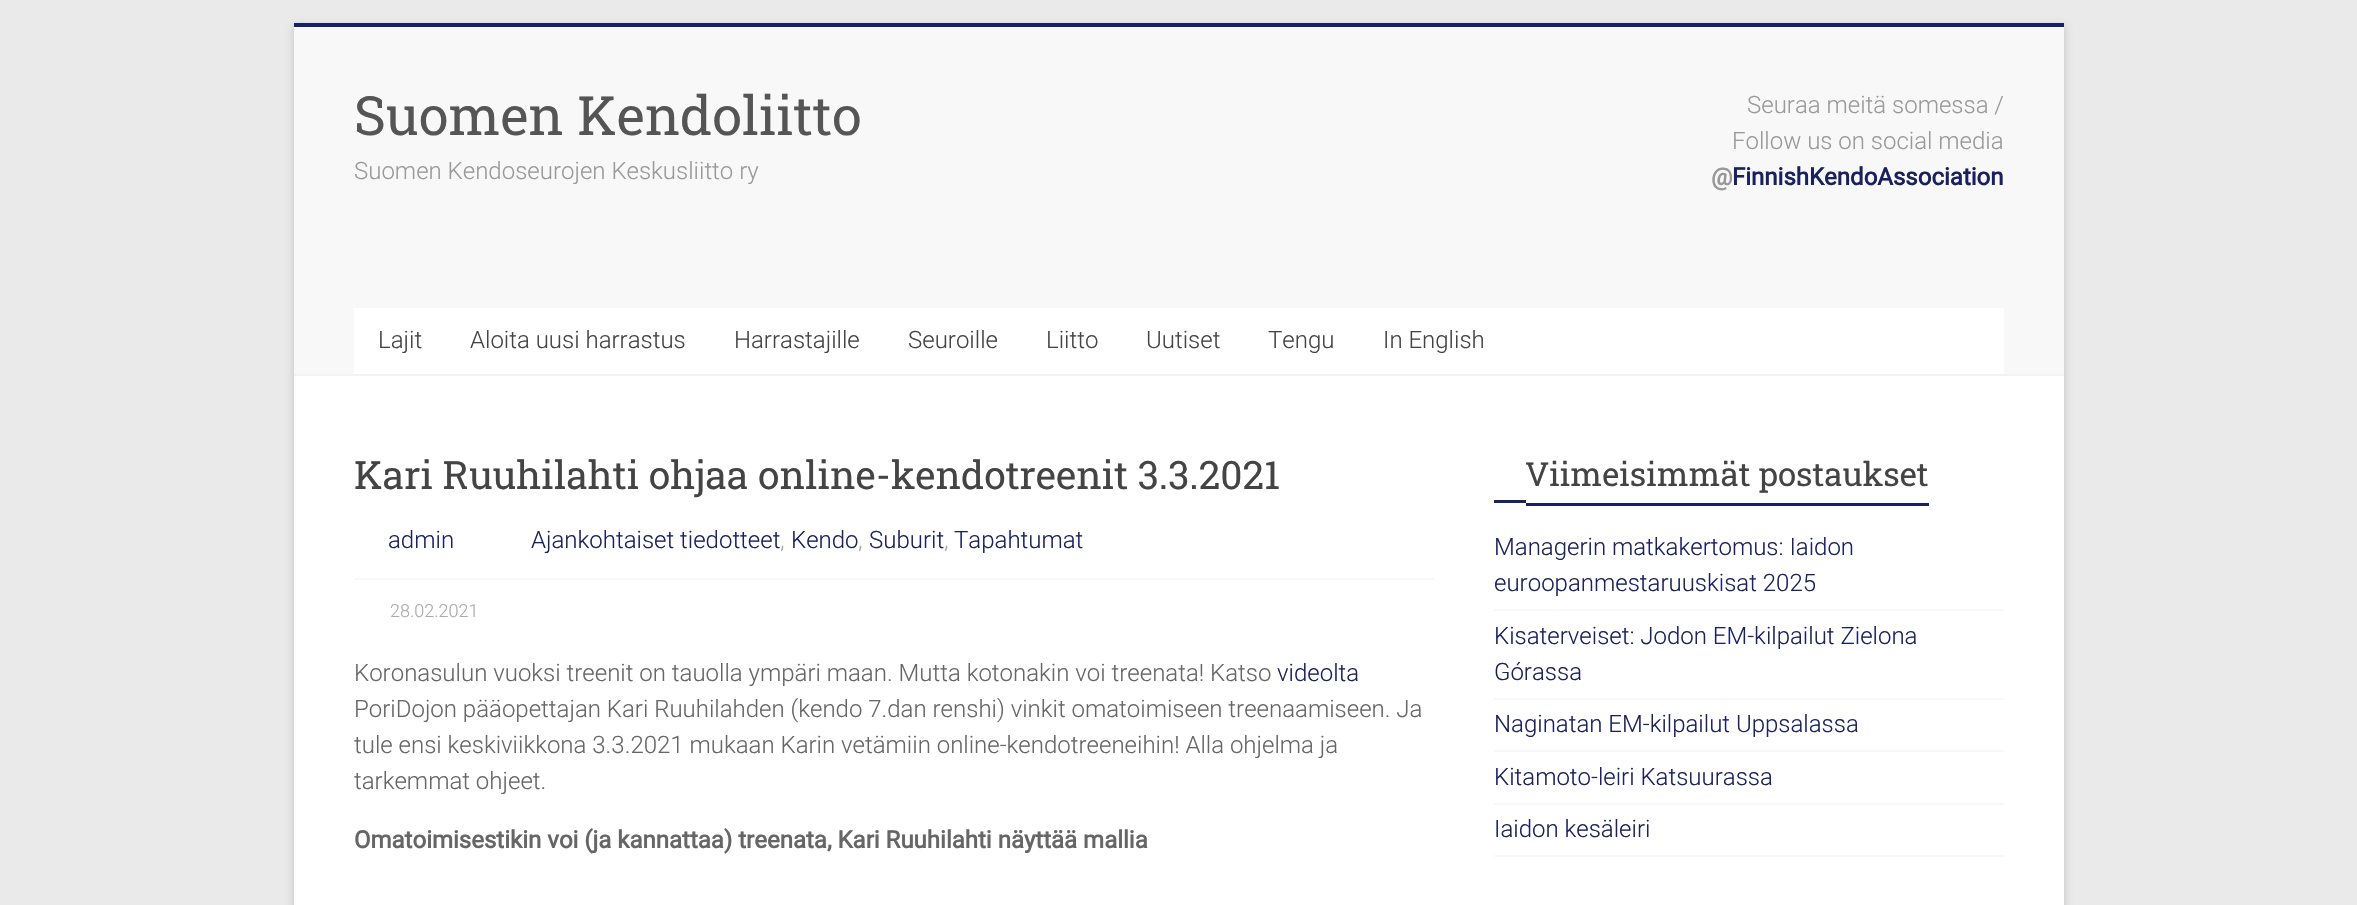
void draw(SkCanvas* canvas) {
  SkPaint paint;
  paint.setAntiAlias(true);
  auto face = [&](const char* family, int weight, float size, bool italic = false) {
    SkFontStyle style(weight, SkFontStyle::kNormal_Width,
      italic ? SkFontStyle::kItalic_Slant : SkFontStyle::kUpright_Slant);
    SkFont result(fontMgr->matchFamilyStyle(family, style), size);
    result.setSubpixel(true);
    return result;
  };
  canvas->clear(0xffeaeaea);
  paint.setColor(0x4d646464);
  paint.setMaskFilter(SkMaskFilter::MakeBlur(kNormal_SkBlurStyle, 4.5f));
  canvas->drawRect(SkRect::MakeXYWH(294, 26, 1770, 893), paint);
  paint.setMaskFilter(nullptr);
  {
    const struct { float x, y, w, h; SkColor color; } items[] = {
      {294, 376, 1770, 529, 0xffffffff},
      {294, 23, 1770, 4, 0xff1a2160},
      {294, 27, 1770, 347, 0xfff8f8f8},
      {294, 374, 1770, 2, 0xfff2f2f2},
      {354, 308, 1650, 66, 0xffffffff},
      {354, 578, 1080, 2, 0xfff8f8f8},
      {1494, 500, 32, 3, 0xff1a2160},
      {1526, 503, 403, 3, 0xff1a2160},
      {1494, 609, 510, 2, 0xfff8f8f8},
      {1494, 698, 510, 2, 0xfff8f8f8},
      {1494, 750, 510, 2, 0xfff8f8f8},
      {1494, 803, 510, 2, 0xfff8f8f8},
      {1494, 855, 510, 2, 0xfff8f8f8},
    };
    for (auto [x, y, w, h, color] : items) {
      paint.setColor(color);
      canvas->drawRect(SkRect::MakeXYWH(x, y, w, h), paint);
    }
  }
  auto f0 = face("Roboto Slab", 400, 54);
  paint.setColor(0xff555555);
  canvas->drawString("Suomen Kendoliitto", 354, 135, f0, paint);
  auto f1 = face("Roboto", 300, 24);
  paint.setColor(0xff999999);
  {
    const struct { const char* s; float x, y; } items[] = {
      {"Suomen Kendoseurojen Keskusliitto ry", 354, 179},
      {"Seuraa meitä somessa /", 1747, 113},
      {"Follow us on social media", 1732, 149},
    };
    for (auto [s, x, y] : items) {
      canvas->drawString(s, x, y, f1, paint);
    }
  }
  auto f2 = face("Roboto", 700, 24);
  canvas->drawString("@", 1711, 185, f2, paint);
  paint.setColor(0xff1a2160);
  canvas->drawString("FinnishKendoAssociation", 1732, 185, f2, paint);
  paint.setColor(0xff444444);
  {
    const struct { const char* s; float x, y; } items[] = {
      {"Lajit", 378, 348},
      {"Aloita uusi harrastus", 470, 348},
      {"Harrastajille", 734, 348},
      {"Seuroille", 908, 348},
      {"Liitto", 1046, 348},
      {"Uutiset", 1146, 348},
      {"Tengu", 1268, 348},
      {"In English", 1383, 348},
    };
    for (auto [s, x, y] : items) {
      canvas->drawString(s, x, y, f1, paint);
    }
  }
  auto f3 = face("Roboto Slab", 400, 39);
  canvas->drawString("Kari Ruuhilahti ohjaa online-kendotreenit 3.3.2021", 354, 489, f3, paint);
  paint.setColor(0xff1a2160);
  canvas->drawString("admin", 388, 548, f1, paint);
  canvas->drawString("Ajankohtaiset tiedotteet", 531, 548, f1, paint);
  paint.setColor(0xffaaaaaa);
  canvas->drawString(",", 780, 548, f1, paint);
  paint.setColor(0xff1a2160);
  canvas->drawString("Kendo", 791, 548, f1, paint);
  paint.setColor(0xffaaaaaa);
  canvas->drawString(",", 858, 548, f1, paint);
  paint.setColor(0xff1a2160);
  canvas->drawString("Suburit", 869, 548, f1, paint);
  paint.setColor(0xffaaaaaa);
  canvas->drawString(",", 944, 548, f1, paint);
  paint.setColor(0xff1a2160);
  canvas->drawString("Tapahtumat", 954, 548, f1, paint);
  auto f4 = face("Roboto", 300, 18);
  paint.setColor(0xffaaaaaa);
  canvas->drawString("28.02.2021", 390, 617, f4, paint);
  paint.setColor(0xff666666);
  canvas->drawString("Koronasulun vuoksi treenit on tauolla ympäri maan. Mutta kotonakin voi treenata! Katso", 354, 681, f1, paint);
  paint.setColor(0xff1a2160);
  canvas->drawString("videolta", 1277, 681, f1, paint);
  paint.setColor(0xff666666);
  {
    const struct { const char* s; float x, y; } items[] = {
      {"PoriDojon pääopettajan Kari Ruuhilahden (kendo 7.dan renshi) vinkit omatoimiseen treenaamiseen. Ja", 354, 717},
      {"tule ensi keskiviikkona 3.3.2021 mukaan Karin vetämiin online-kendotreeneihin! Alla ohjelma ja", 354, 753},
      {"tarkemmat ohjeet.", 354, 789},
    };
    for (auto [s, x, y] : items) {
      canvas->drawString(s, x, y, f1, paint);
    }
  }
  canvas->drawString("Omatoimisestikin voi (ja kannattaa) treenata, Kari Ruuhilahti näyttää mallia", 354, 848, f2, paint);
  auto f5 = face("Roboto Slab", 400, 33);
  paint.setColor(0xff444444);
  canvas->drawString("Viimeisimmät postaukset", 1525, 486, f5, paint);
  paint.setColor(0xff1a2160);
  {
    const struct { const char* s; float x, y; } items[] = {
      {"Managerin matkakertomus: Iaidon", 1494, 555},
      {"euroopanmestaruuskisat 2025", 1494, 591},
      {"Kisaterveiset: Jodon EM-kilpailut Zielona", 1494, 644},
      {"Górassa", 1494, 680},
      {"Naginatan EM-kilpailut Uppsalassa", 1494, 732},
      {"Kitamoto-leiri Katsuurassa", 1494, 785},
      {"Iaidon kesäleiri", 1494, 837},
    };
    for (auto [s, x, y] : items) {
      canvas->drawString(s, x, y, f1, paint);
    }
  }
}
